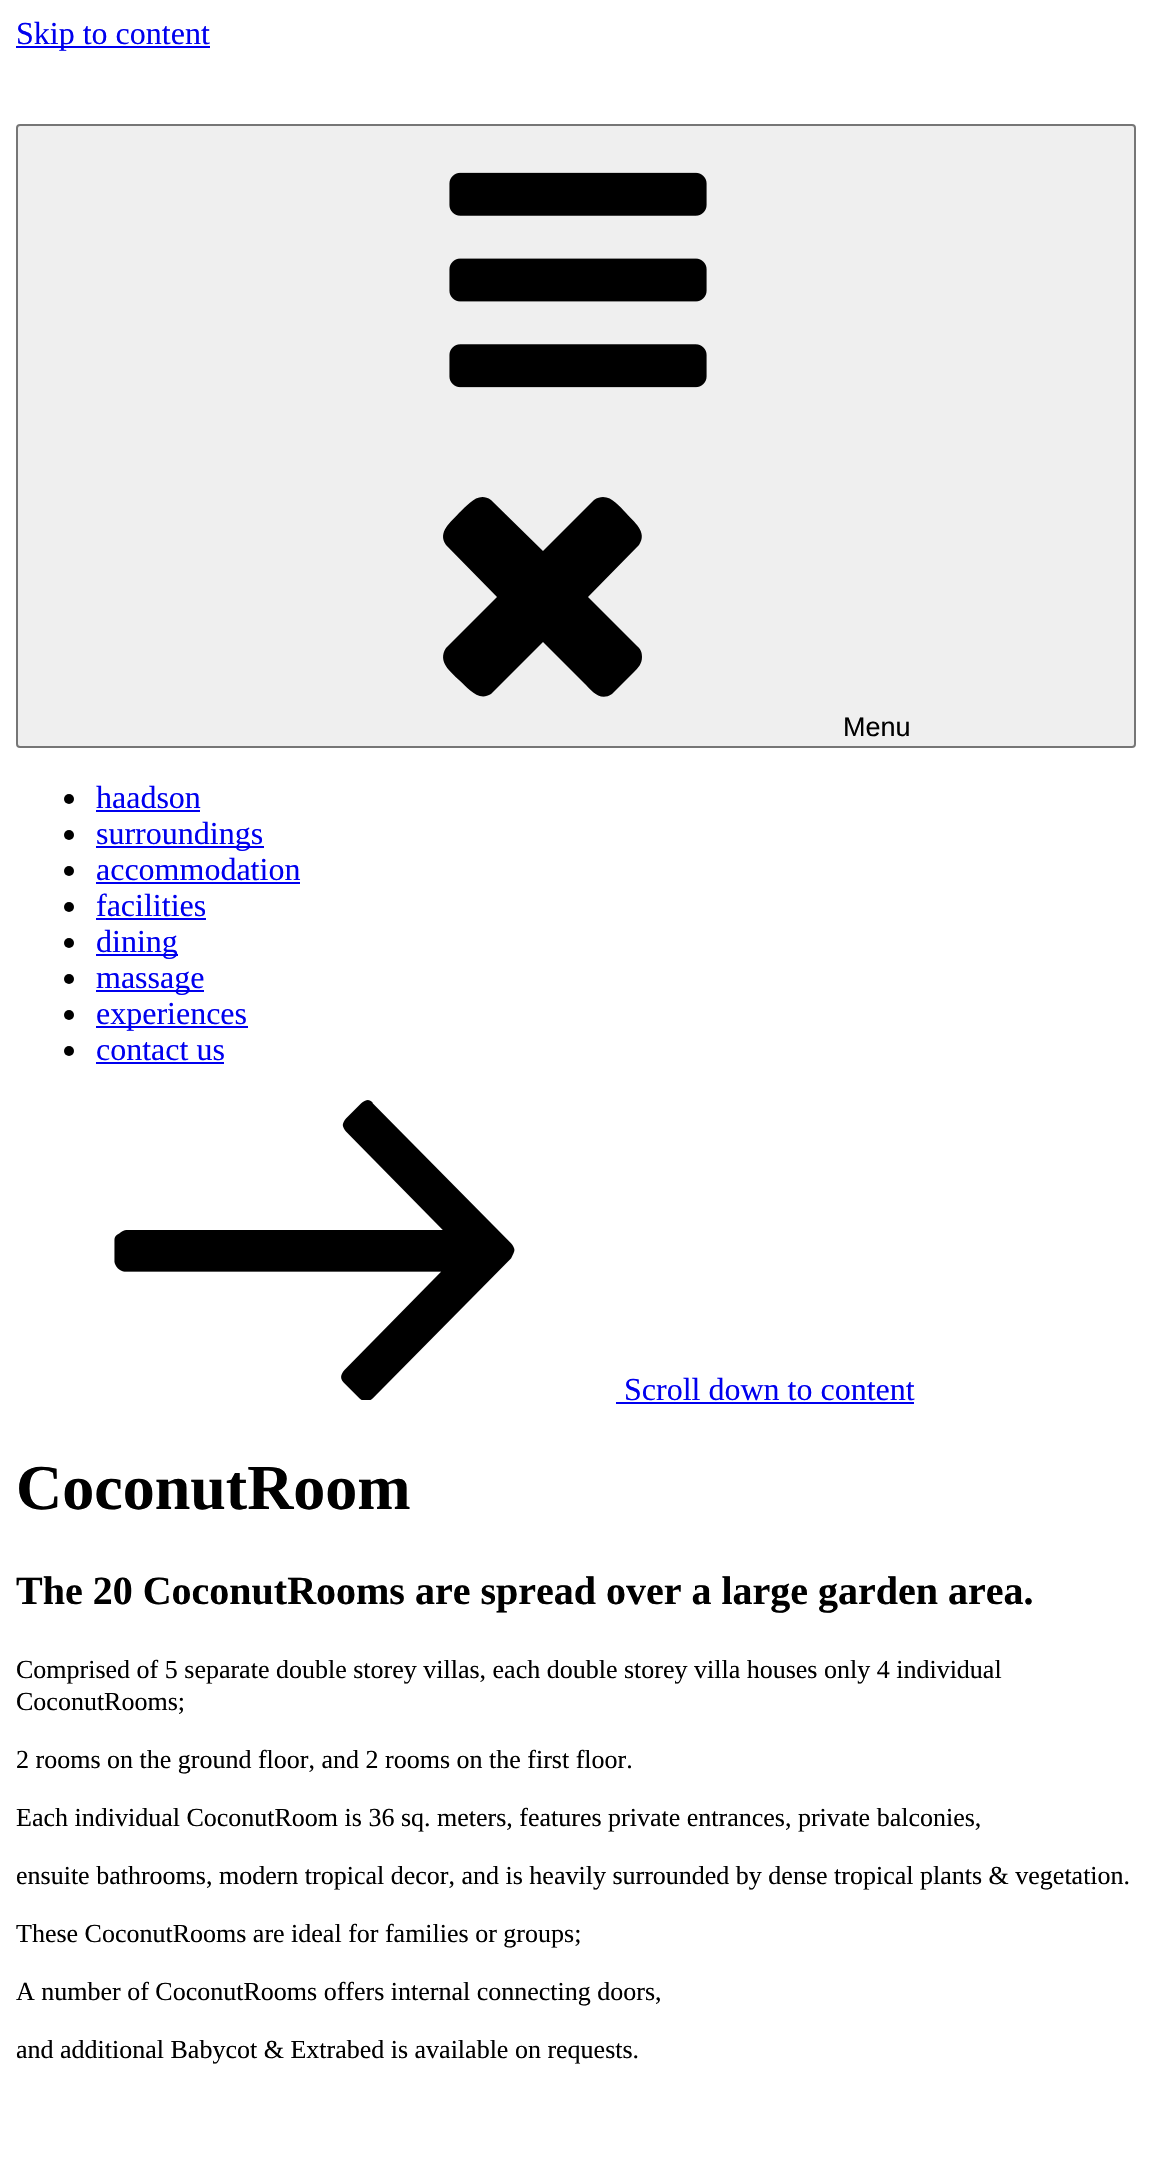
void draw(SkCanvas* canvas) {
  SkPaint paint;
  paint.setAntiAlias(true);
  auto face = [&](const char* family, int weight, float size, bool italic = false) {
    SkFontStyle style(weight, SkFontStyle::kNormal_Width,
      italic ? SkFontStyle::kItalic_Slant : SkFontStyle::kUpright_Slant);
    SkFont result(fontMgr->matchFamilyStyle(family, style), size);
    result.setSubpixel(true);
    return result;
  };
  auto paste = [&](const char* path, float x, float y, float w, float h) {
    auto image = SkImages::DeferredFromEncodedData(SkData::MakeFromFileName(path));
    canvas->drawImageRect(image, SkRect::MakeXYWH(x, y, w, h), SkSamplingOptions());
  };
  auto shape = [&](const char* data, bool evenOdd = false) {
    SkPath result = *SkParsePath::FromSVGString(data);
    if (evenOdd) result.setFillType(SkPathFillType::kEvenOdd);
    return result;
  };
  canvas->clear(0xffffffff);
  paint.setColor(0xff0000ee);
  canvas->drawRect(SkRect::MakeXYWH(16, 46, 194, 2), paint);
  paint.setColor(0xffefefef);
  canvas->drawRoundRect(SkRect::MakeXYWH(17, 125, 1118, 622), 3, 3, paint);
  paint.setStroke(true);
  paint.setStrokeWidth(2);
  paint.setColor(0xff767676);
  canvas->drawRoundRect(SkRect::MakeXYWH(17, 125, 1118, 622), 3, 3, paint);
  paste("img/1.png", 449, 172, 258, 216);
  paint.setStroke(false);
  paint.setColor(0xff000000);
  canvas->drawPath(shape("M642 657C642 664 638 668 634 672L612 694C600 702 592 691 584 683L543 642L491 694C478 702 468 688 459 680C451 672 437 662 446 648L497 597L446 545C437 532 451 522 459 513C468 505 478 491 491 500L543 551L594 500C608 491 618 505 626 513C634 522 648 532 639 545L588 597L637 646C641 649 642 653 642 657Z"), paint);
  canvas->drawCircle(69, 799, 5, paint);
  paint.setColor(0xff0000ee);
  canvas->drawRect(SkRect::MakeXYWH(96, 810, 104, 2), paint);
  paint.setColor(0xff000000);
  canvas->drawCircle(69, 835, 5, paint);
  paint.setColor(0xff0000ee);
  canvas->drawRect(SkRect::MakeXYWH(96, 846, 168, 2), paint);
  paint.setColor(0xff000000);
  canvas->drawCircle(69, 871, 5, paint);
  paint.setColor(0xff0000ee);
  canvas->drawRect(SkRect::MakeXYWH(96, 882, 204, 2), paint);
  paint.setColor(0xff000000);
  canvas->drawCircle(69, 907, 5, paint);
  paint.setColor(0xff0000ee);
  canvas->drawRect(SkRect::MakeXYWH(96, 918, 110, 2), paint);
  paint.setColor(0xff000000);
  canvas->drawCircle(69, 943, 5, paint);
  paint.setColor(0xff0000ee);
  canvas->drawRect(SkRect::MakeXYWH(96, 954, 82, 2), paint);
  paint.setColor(0xff000000);
  canvas->drawCircle(69, 979, 5, paint);
  paint.setColor(0xff0000ee);
  canvas->drawRect(SkRect::MakeXYWH(96, 990, 108, 2), paint);
  paint.setColor(0xff000000);
  canvas->drawCircle(69, 1015, 5, paint);
  paint.setColor(0xff0000ee);
  canvas->drawRect(SkRect::MakeXYWH(96, 1026, 152, 2), paint);
  paint.setColor(0xff000000);
  canvas->drawCircle(69, 1051, 5, paint);
  paint.setColor(0xff0000ee);
  canvas->drawRect(SkRect::MakeXYWH(96, 1062, 128, 2), paint);
  paste("img/2.png", 114, 1100, 401, 300);
  canvas->drawRect(SkRect::MakeXYWH(616, 1402, 298, 2), paint);
  auto f0 = face("Liberation Serif", 400, 32);
  canvas->drawString("Skip to content", 16, 44, f0, paint);
  auto f1 = face("Liberation Sans", 400, 27);
  paint.setColor(0xff000000);
  canvas->drawString("Menu", 843, 736, f1, paint);
  paint.setColor(0xff0000ee);
  {
    const struct { const char* s; float x, y; } items[] = {
      {"haadson", 96, 808},
      {"surroundings", 96, 844},
      {"accommodation", 96, 880},
      {"facilities", 96, 916},
      {"dining", 96, 952},
      {"massage", 96, 988},
      {"experiences", 96, 1024},
      {"contact us", 96, 1060},
      {"Scroll down to content", 624, 1400},
    };
    for (auto [s, x, y] : items) {
      canvas->drawString(s, x, y, f0, paint);
    }
  }
  auto f2 = face("Liberation Serif", 700, 64);
  paint.setColor(0xff000000);
  canvas->drawString("CoconutRoom", 16, 1509, f2, paint);
  auto f3 = face("Liberation Serif", 700, 40);
  canvas->drawString("The 20 CoconutRooms are spread over a large garden area.", 16, 1604, f3, paint);
  auto f4 = face("Liberation Serif", 400, 26);
  {
    const struct { const char* s; float x, y; } items[] = {
      {"Comprised of 5 separate double storey villas, each double storey villa houses only 4 individual", 16, 1678},
      {"CoconutRooms;", 16, 1710},
      {"2 rooms on the ground floor, and 2 rooms on the first floor.", 16, 1768},
      {"Each individual CoconutRoom is 36 sq. meters, features private entrances, private balconies,", 16, 1826},
      {"ensuite bathrooms, modern tropical decor, and is heavily surrounded by dense tropical plants & vegetation.", 16, 1884},
      {"These CoconutRooms are ideal for families or groups;", 16, 1942},
      {"A number of CoconutRooms offers internal connecting doors,", 16, 2000},
      {"and additional Babycot & Extrabed is available on requests.", 16, 2058},
    };
    for (auto [s, x, y] : items) {
      canvas->drawString(s, x, y, f4, paint);
    }
  }
}
